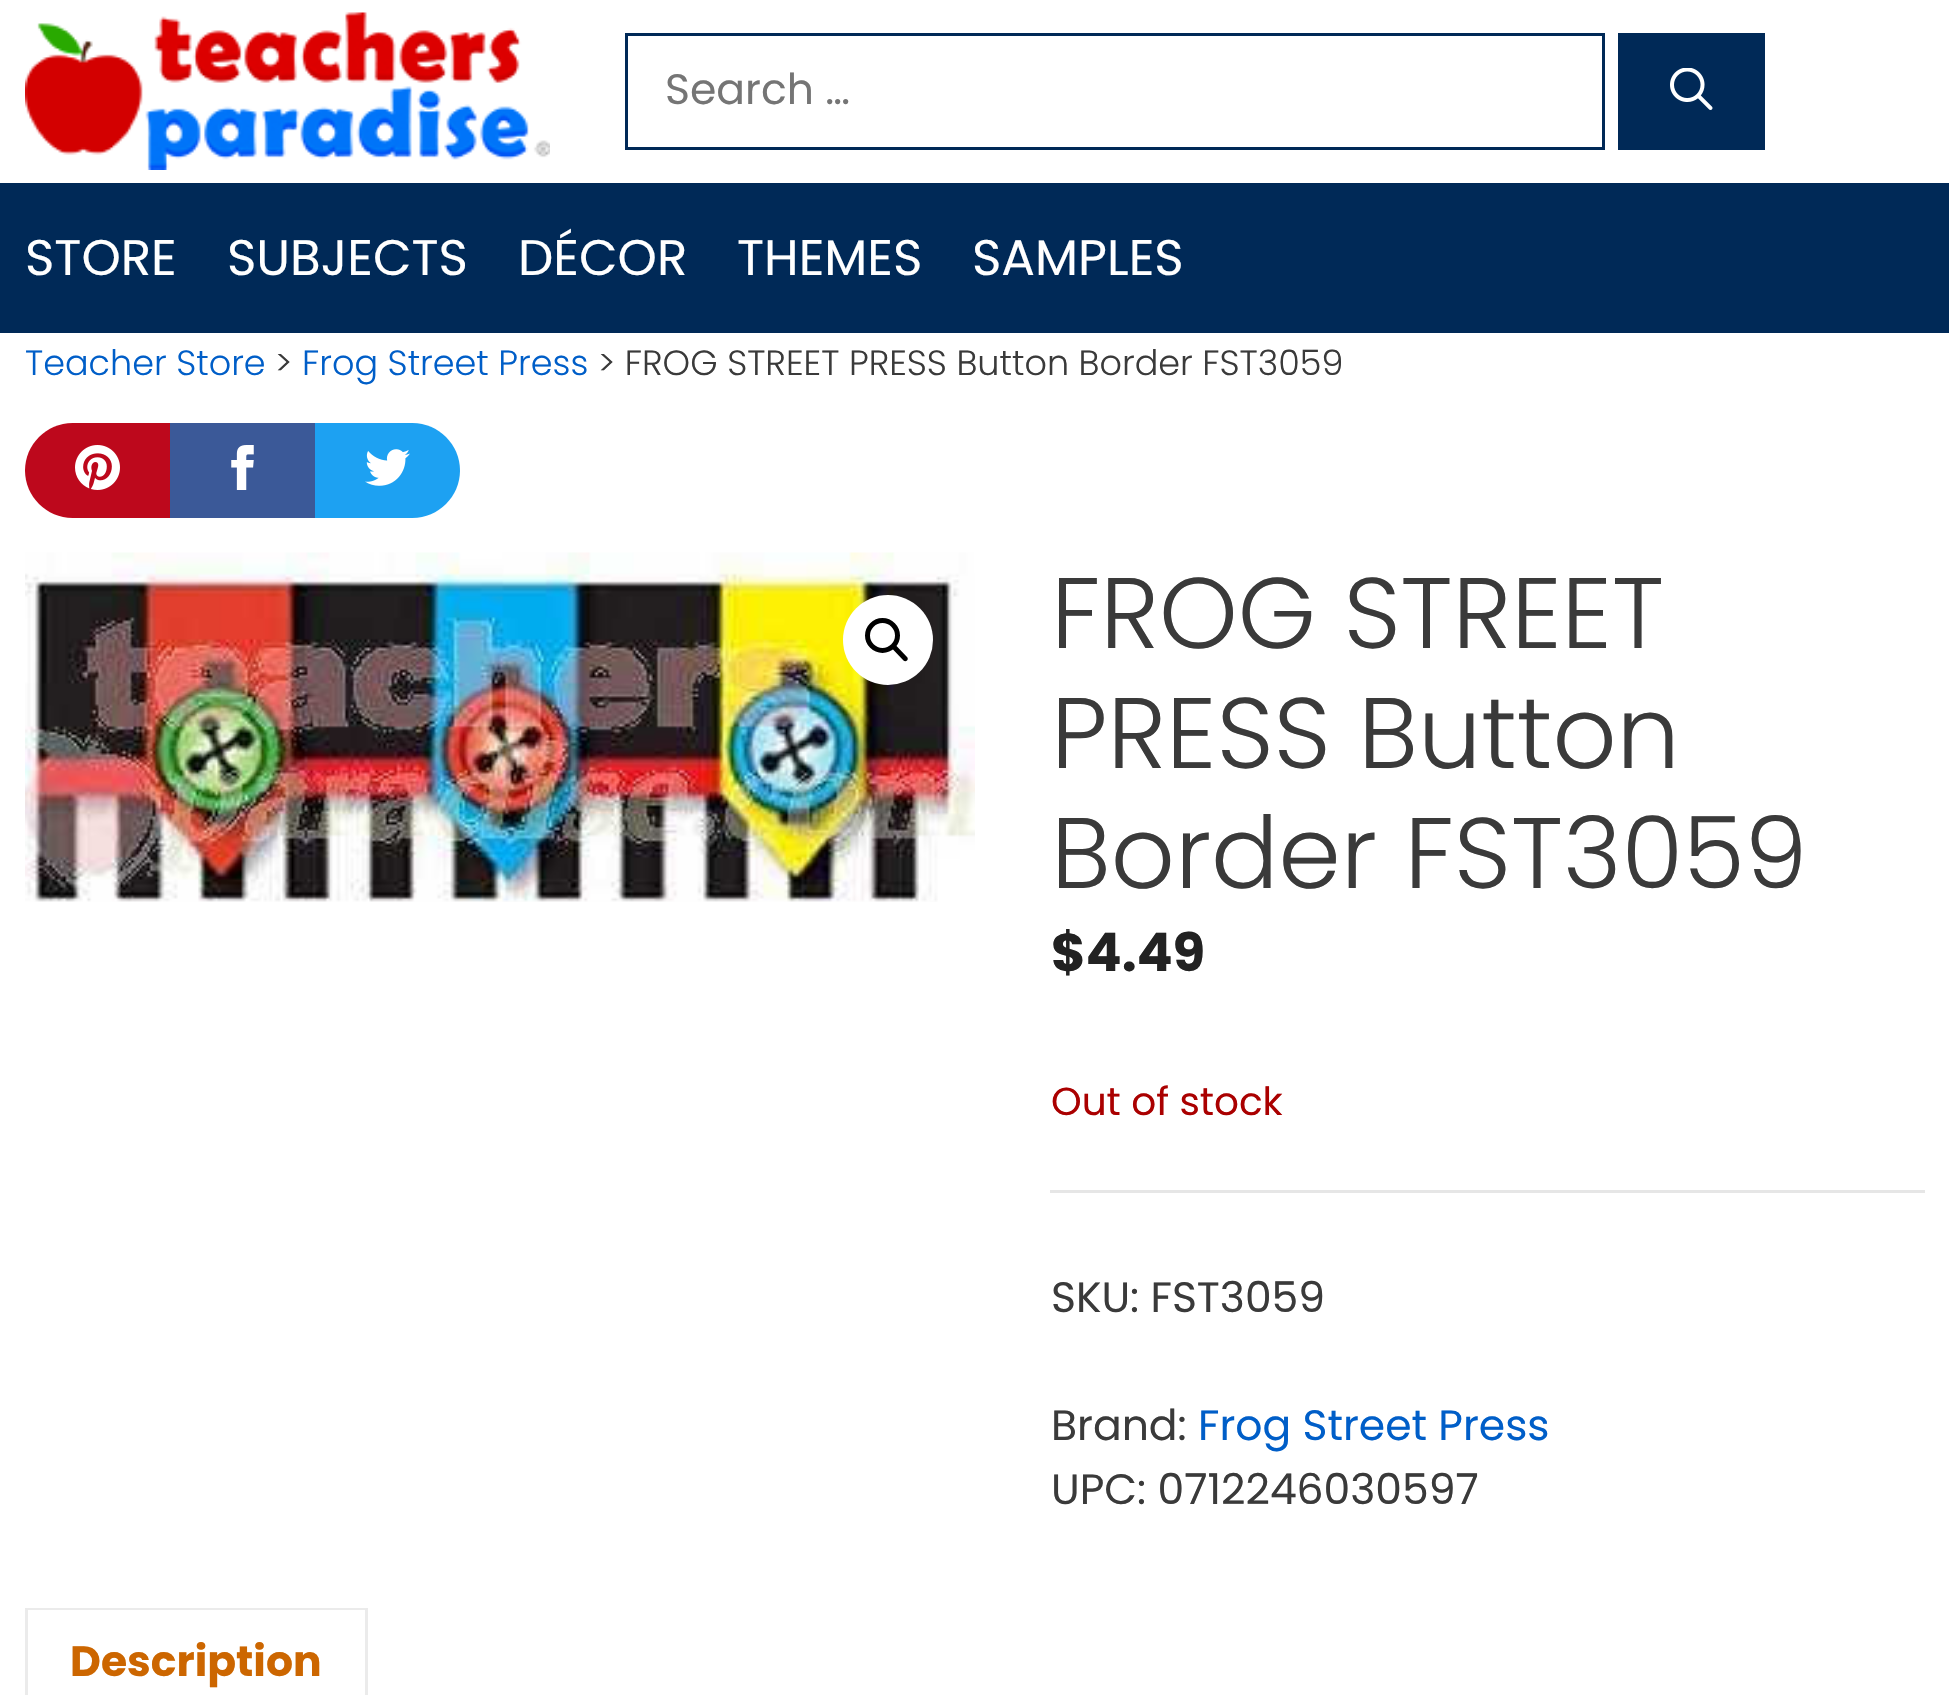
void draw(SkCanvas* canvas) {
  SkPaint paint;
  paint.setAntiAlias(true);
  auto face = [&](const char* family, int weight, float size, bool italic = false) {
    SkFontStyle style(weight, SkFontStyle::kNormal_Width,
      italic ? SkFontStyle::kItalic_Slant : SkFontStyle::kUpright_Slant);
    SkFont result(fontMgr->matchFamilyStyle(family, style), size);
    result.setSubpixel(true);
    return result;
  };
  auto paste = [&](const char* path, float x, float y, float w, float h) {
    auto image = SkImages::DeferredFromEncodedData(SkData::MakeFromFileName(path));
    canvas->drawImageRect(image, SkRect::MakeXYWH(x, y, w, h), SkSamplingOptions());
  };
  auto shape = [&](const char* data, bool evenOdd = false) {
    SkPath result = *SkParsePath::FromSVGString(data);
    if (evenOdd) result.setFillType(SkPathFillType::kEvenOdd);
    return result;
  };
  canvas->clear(0xff002957);
  paint.setColor(0xffffffff);
  canvas->drawRect(SkRect::MakeXYWH(0, 0, 1949, 183), paint);
  paste("img/1.png", 25, 12, 525, 158);
  paint.setStroke(true);
  paint.setStrokeWidth(3);
  paint.setColor(0xff002957);
  canvas->drawRect(SkRect::MakeXYWH(626.5f, 34.5f, 977, 114), paint);
  paint.setStroke(false);
  canvas->drawRect(SkRect::MakeXYWH(1618, 33, 147, 117), paint);
  paste("img/2.png", 1670, 68, 43, 42);
  paint.setColor(0xffffffff);
  canvas->drawRect(SkRect::MakeXYWH(0, 333, 1949, 1362), paint);
  paint.setColor(0xffbd081c);
  canvas->drawPath(shape("M72.5 423H170V518H72.5C46.5 518 25 496.5 25 470.5C25 444.5 46.5 423 72.5 423Z"), paint);
  paste("img/3.png", 75, 445, 45, 45);
  paint.setColor(0xff3b5998);
  canvas->drawRect(SkRect::MakeXYWH(170, 423, 145, 95), paint);
  paste("img/4.png", 231, 445, 23, 45);
  paint.setColor(0xff1da1f2);
  canvas->drawPath(shape("M315 423H412.5C438.5 423 460 444.5 460 470.5C460 496.5 438.5 518 412.5 518H315Z"), paint);
  paste("img/5.png", 365, 449, 45, 37);
  paste("img/6.png", 25, 552, 950, 350);
  paint.setColor(0xffffffff);
  canvas->drawCircle(888, 640, 45, paint);
  paint.setStroke(true);
  paint.setStrokeWidth(5);
  paint.setColor(0xff000000);
  canvas->drawCircle(882.5f, 635.5f, 15, paint);
  paint.setStroke(false);
  canvas->drawPath(shape("M893 646C894 645 895.5 645 896.5 646L907 657C908 658 908 659.5 907 660.5C906 661.5 904.5 661.5 903.5 660.5L893 649.5C892 649 892 647 893 646Z"), paint);
  paint.setColor(0xffe6e6e6);
  canvas->drawRect(SkRect::MakeXYWH(1050, 1190, 875, 3), paint);
  paint.setColor(0xffebebeb);
  canvas->drawPath(shape("M25 1608H368L365 1610H28Z"), paint);
  paint.setColor(0x14000000);
  canvas->drawPath(shape("M368 1608V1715H365V1610Z"), paint);
  canvas->drawPath(shape("M25 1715V1608L28 1610V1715Z"), paint);
  auto f0 = face("Poppins", 400, 42.5f);
  paint.setColor(0xff757575);
  canvas->drawString("Search …", 665, 104, f0, paint);
  auto f1 = face("Poppins", 400, 50);
  paint.setColor(0xffffffff);
  {
    const struct { const char* s; float x, y; } items[] = {
      {"STORE", 25, 275},
      {"SUBJECTS", 227, 275},
      {"DÉCOR", 518, 275},
      {"THEMES", 737, 275},
      {"SAMPLES", 972, 275},
    };
    for (auto [s, x, y] : items) {
      canvas->drawString(s, x, y, f1, paint);
    }
  }
  auto f2 = face("Poppins", 300, 35);
  paint.setColor(0xff005ec8);
  canvas->drawString("Teacher Store", 25, 375, f2, paint);
  paint.setColor(0xff3a3a3a);
  canvas->drawString(">", 275, 375, f2, paint);
  paint.setColor(0xff005ec8);
  canvas->drawString("Frog Street Press", 302, 375, f2, paint);
  paint.setColor(0xff3a3a3a);
  canvas->drawString("> FROG STREET PRESS Button Border FST3059", 598, 375, f2, paint);
  auto f3 = face("Poppins", 300, 100);
  {
    const struct { const char* s; float x, y; } items[] = {
      {"FROG STREET", 1051, 648},
      {"PRESS Button", 1051, 768},
      {"Border FST3059", 1051, 888},
    };
    for (auto [s, x, y] : items) {
      canvas->drawString(s, x, y, f3, paint);
    }
  }
  auto f4 = face("Poppins", 700, 53);
  paint.setColor(0xff222222);
  canvas->drawString("$4.49", 1051, 971, f4, paint);
  auto f5 = face("Poppins", 400, 39);
  paint.setColor(0xffaa0000);
  canvas->drawString("Out of stock", 1051, 1115, f5, paint);
  paint.setColor(0xff3a3a3a);
  canvas->drawString("SKU: FST3059", 1051, 1312, f0, paint);
  canvas->drawString("Brand:", 1051, 1440, f0, paint);
  paint.setColor(0xff005ec8);
  canvas->drawString("Frog Street Press", 1198, 1440, f0, paint);
  paint.setColor(0xff3a3a3a);
  canvas->drawString("UPC: 0712246030597", 1051, 1504, f0, paint);
  auto f6 = face("Poppins", 700, 42.5f);
  paint.setColor(0xffcc6600);
  canvas->drawString("Description", 70, 1676, f6, paint);
}
